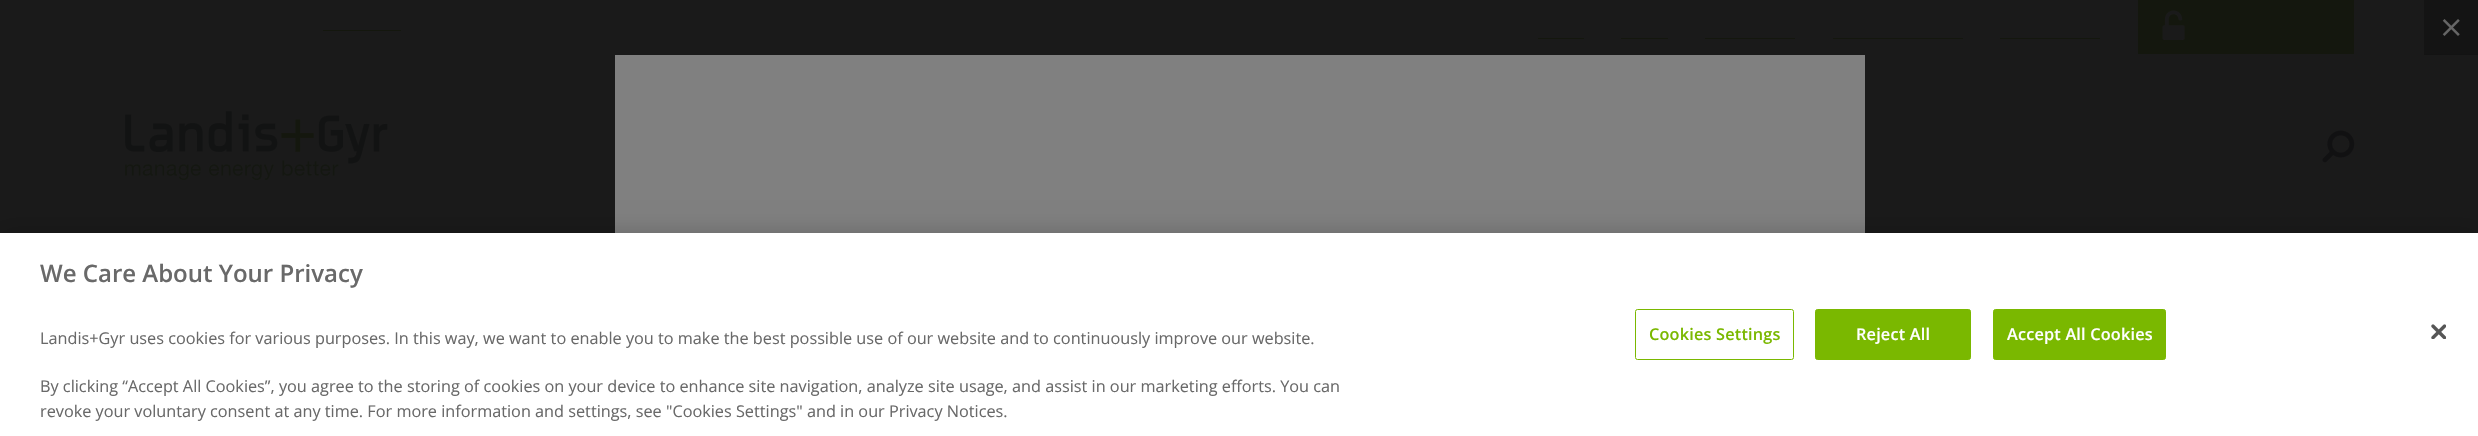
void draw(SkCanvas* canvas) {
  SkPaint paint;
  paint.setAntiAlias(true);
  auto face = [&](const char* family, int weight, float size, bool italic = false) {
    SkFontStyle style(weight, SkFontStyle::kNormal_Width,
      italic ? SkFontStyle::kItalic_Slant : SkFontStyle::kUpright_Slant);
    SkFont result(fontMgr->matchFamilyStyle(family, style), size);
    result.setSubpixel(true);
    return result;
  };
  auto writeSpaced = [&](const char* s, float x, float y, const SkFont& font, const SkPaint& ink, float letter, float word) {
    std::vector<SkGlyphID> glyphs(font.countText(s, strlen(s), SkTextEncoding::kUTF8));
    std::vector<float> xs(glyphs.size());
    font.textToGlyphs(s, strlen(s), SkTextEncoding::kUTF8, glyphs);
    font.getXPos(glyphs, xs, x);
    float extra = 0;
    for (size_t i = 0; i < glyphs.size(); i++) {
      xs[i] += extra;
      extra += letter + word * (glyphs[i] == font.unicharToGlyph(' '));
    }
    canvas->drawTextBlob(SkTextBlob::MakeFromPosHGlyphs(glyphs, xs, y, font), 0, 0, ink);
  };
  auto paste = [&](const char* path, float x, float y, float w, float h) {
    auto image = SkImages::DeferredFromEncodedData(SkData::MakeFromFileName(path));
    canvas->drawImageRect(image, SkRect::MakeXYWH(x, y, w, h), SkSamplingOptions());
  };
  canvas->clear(0xff1a1a1a);
  {
    const struct { float x, y, w, h; SkColor color; } items[] = {
      {2424, 0, 54, 54, 0xff141414},
      {2424, 54, 54, 1, 0xff131313},
      {323, 30, 78, 1, 0xff14170e},
      {1538, 38, 46, 1, 0xff14170e},
      {1621, 38, 47, 1, 0xff14170e},
      {1705, 38, 90, 1, 0xff14170e},
      {1833, 38, 130, 1, 0xff14170e},
      {2000, 38, 100, 1, 0xff14170e},
      {2138, 0, 216, 54, 0xff14170e},
    };
    for (auto [x, y, w, h, color] : items) {
      paint.setColor(color);
      canvas->drawRect(SkRect::MakeXYWH(x, y, w, h), paint);
    }
  }
  paste("img/1.png", 2162, 10, 23, 30);
  paste("img/2.png", 125, 111, 263, 69);
  paste("img/3.png", 2322, 130, 33, 33);
  paste("img/4.png", 2442, 19, 18, 17);
  paint.setColor(0xff808080);
  canvas->drawRect(SkRect::MakeXYWH(615, 55, 1250, 178), paint);
  paint.setColor(0x33000000);
  paint.setMaskFilter(SkMaskFilter::MakeBlur(kNormal_SkBlurStyle, 11));
  canvas->drawRect(SkRect::MakeXYWH(0, 233, 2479, 203), paint);
  paint.setMaskFilter(nullptr);
  paint.setColor(0xffffffff);
  canvas->drawRect(SkRect::MakeXYWH(0, 233, 2478, 203), paint);
  paint.setStroke(true);
  paint.setStrokeWidth(1);
  paint.setColor(0xff7ab800);
  canvas->drawRoundRect(SkRect::MakeXYWH(1635.5f, 309.5f, 158, 50), 2, 2, paint);
  paint.setStroke(false);
  canvas->drawRoundRect(SkRect::MakeXYWH(1815.5f, 309.5f, 155, 50), 2, 2, paint);
  paint.setStroke(true);
  canvas->drawRoundRect(SkRect::MakeXYWH(1815.5f, 309.5f, 155, 50), 2, 2, paint);
  paint.setStroke(false);
  canvas->drawRoundRect(SkRect::MakeXYWH(1993.5f, 309.5f, 172, 50), 2, 2, paint);
  paint.setStroke(true);
  canvas->drawRoundRect(SkRect::MakeXYWH(1993.5f, 309.5f, 172, 50), 2, 2, paint);
  paste("img/5.png", 2431, 324, 15, 15);
  auto f0 = face("Open Sans", 600, 24);
  paint.setStroke(false);
  paint.setColor(0xff696969);
  canvas->drawString("We Care About Your Privacy", 40, 282, f0, paint);
  auto f1 = face("Open Sans", 400, 16.25f);
  {
    const struct { const char* s; float x, y; } items[] = {
      {"Landis+Gyr uses cookies for various purposes. In this way, we want to enable you to make the best possible use of our website and to continuously improve our website.", 40, 344},
      {"By clicking “Accept All Cookies”, you agree to the storing of cookies on your device to enhance site navigation, analyze site usage, and assist in our marketing efforts. You can", 40, 392},
      {"revoke your voluntary consent at any time. For more information and settings, see \"Cookies Settings\" and in our Privacy Notices.", 40, 417},
    };
    for (auto [s, x, y] : items) {
      canvas->drawString(s, x, y, f1, paint);
    }
  }
  auto f2 = face("Open Sans", 600, 16.25f);
  paint.setColor(0xff7ab800);
  writeSpaced("Cookies Settings", 1649, 340, f2, paint, 0.2f, 0);
  paint.setColor(0xffffffff);
  writeSpaced("Reject All", 1856, 340, f2, paint, 0.2f, 0);
  writeSpaced("Accept All Cookies", 2007, 340, f2, paint, 0.2f, 0);
}
